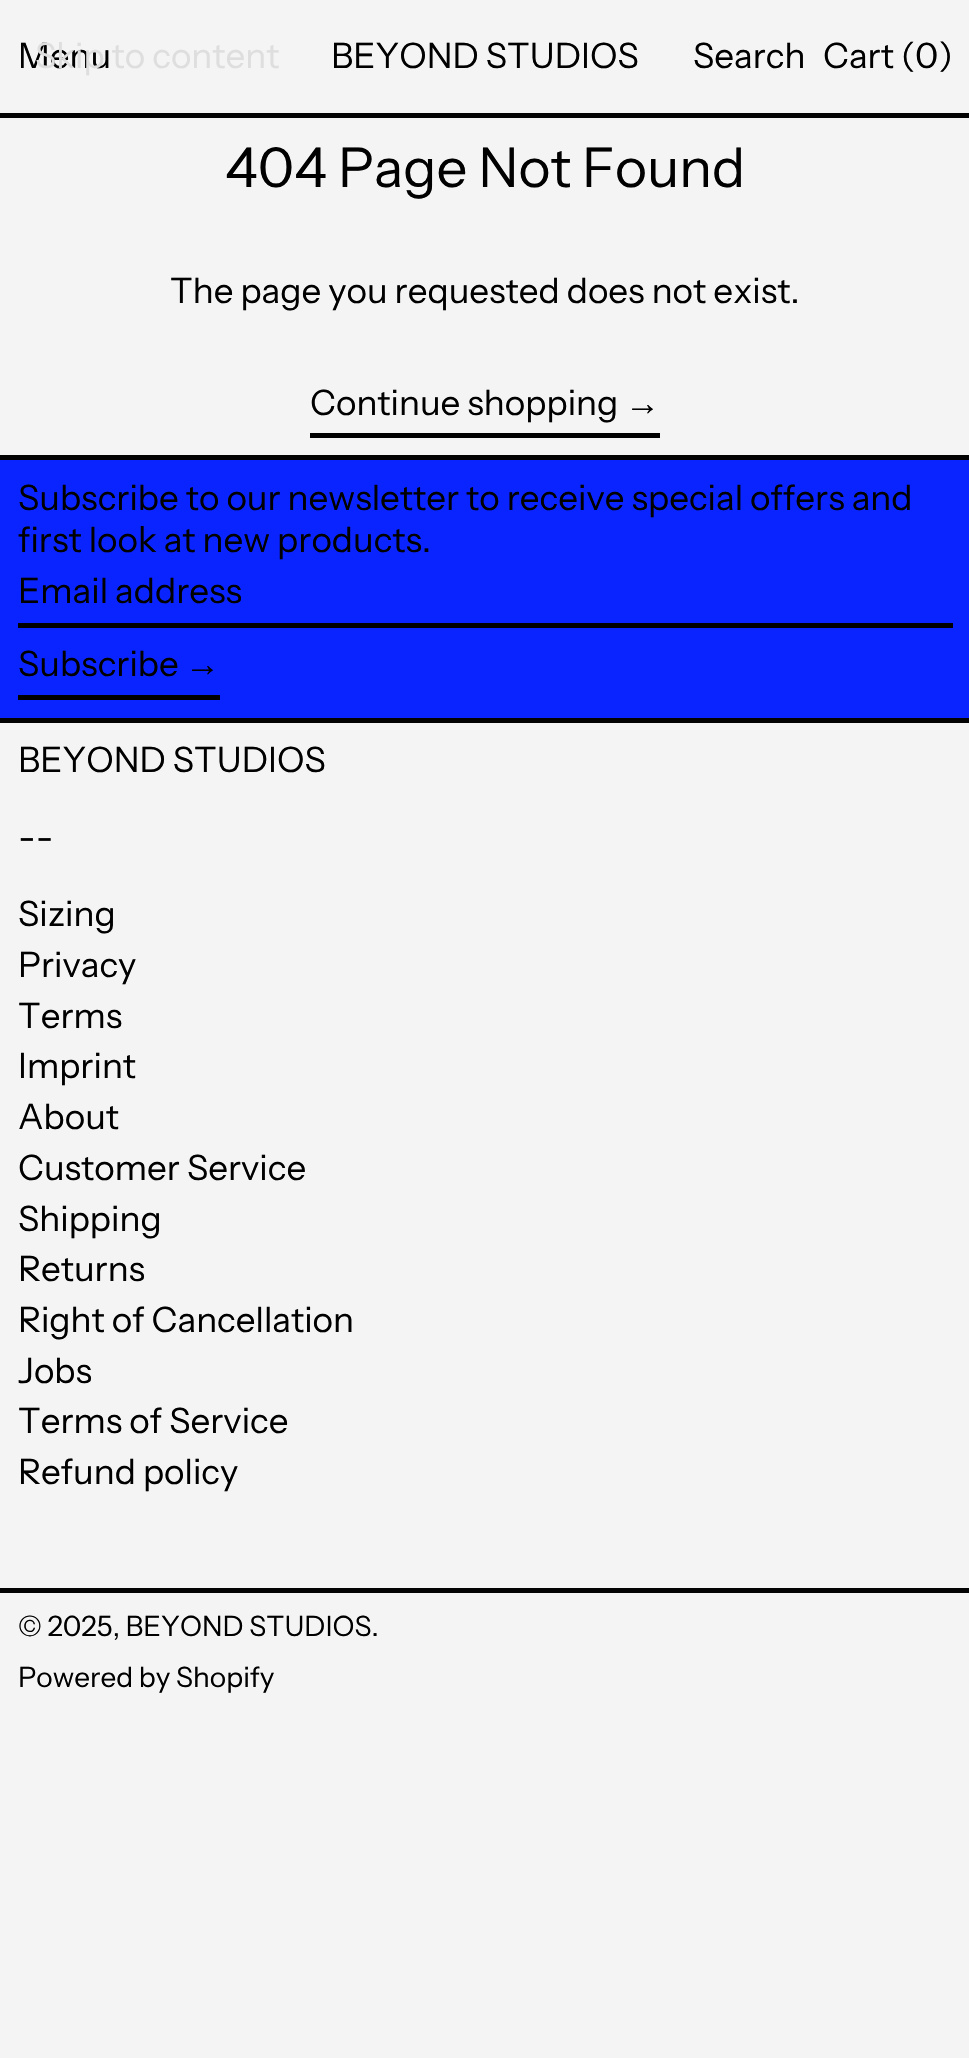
void draw(SkCanvas* canvas) {
  SkPaint paint;
  paint.setAntiAlias(true);
  auto face = [&](const char* family, int weight, float size, bool italic = false) {
    SkFontStyle style(weight, SkFontStyle::kNormal_Width,
      italic ? SkFontStyle::kItalic_Slant : SkFontStyle::kUpright_Slant);
    SkFont result(fontMgr->matchFamilyStyle(family, style), size);
    result.setSubpixel(true);
    return result;
  };
  canvas->clear(0xfff4f4f4);
  {
    const struct { float x, y, w, h; SkColor color; } items[] = {
      {0, 113, 969, 5, 0xff030303},
      {310, 433, 350, 5, 0xff000000},
      {0, 460, 969, 258, 0xff0a24ff},
      {0, 455, 969, 5, 0xff030303},
      {18, 623, 935, 5, 0xff000000},
      {18, 695, 202, 5, 0xff000000},
      {0, 718, 969, 5, 0xff030303},
      {0, 1588, 969, 5, 0xff030303},
    };
    for (auto [x, y, w, h, color] : items) {
      paint.setColor(color);
      canvas->drawRect(SkRect::MakeXYWH(x, y, w, h), paint);
    }
  }
  auto f0 = face("Instrument Sans", 400, 35);
  paint.setColor(0xff000000);
  {
    const struct { const char* s; float x, y; } items[] = {
      {"Menu", 18, 68},
      {"BEYOND STUDIOS", 331, 68},
      {"Search", 693, 68},
      {"Cart (0)", 823, 68},
    };
    for (auto [s, x, y] : items) {
      canvas->drawString(s, x, y, f0, paint);
    }
  }
  auto f1 = face("Instrument Sans", 400, 54.75f);
  canvas->drawString("404 Page Not Found", 225, 187, f1, paint);
  canvas->drawString("The page you requested does not exist.", 170, 303, f0, paint);
  canvas->drawString("Continue shopping", 310, 415, f0, paint);
  auto f2 = face("Liberation Sans", 400, 35);
  canvas->drawString("→", 625, 415, f2, paint);
  {
    const struct { const char* s; float x, y; } items[] = {
      {"Subscribe to our newsletter to receive special offers and", 18, 510},
      {"first look at new products.", 18, 552},
      {"Email address", 18, 603},
      {"Subscribe", 18, 676},
    };
    for (auto [s, x, y] : items) {
      canvas->drawString(s, x, y, f0, paint);
    }
  }
  canvas->drawString("→", 185, 676, f2, paint);
  {
    const struct { const char* s; float x, y; } items[] = {
      {"BEYOND STUDIOS", 18, 772},
      {"--", 18, 849},
      {"Sizing", 18, 926},
      {"Privacy", 18, 977},
      {"Terms", 18, 1028},
      {"Imprint", 18, 1078},
      {"About", 18, 1129},
      {"Customer Service", 18, 1180},
      {"Shipping", 18, 1231},
      {"Returns", 18, 1281},
      {"Right of Cancellation", 18, 1332},
      {"Jobs", 18, 1383},
      {"Terms of Service", 18, 1433},
      {"Refund policy", 18, 1484},
    };
    for (auto [s, x, y] : items) {
      canvas->drawString(s, x, y, f0, paint);
    }
  }
  auto f3 = face("Instrument Sans", 400, 28);
  canvas->drawString("© 2025, BEYOND STUDIOS.", 18, 1636, f3, paint);
  canvas->drawString("Powered by Shopify", 18, 1687, f3, paint);
  paint.setColor(0xffdedede);
  canvas->drawString("Skip to content", 35, 68, f0, paint);
}
